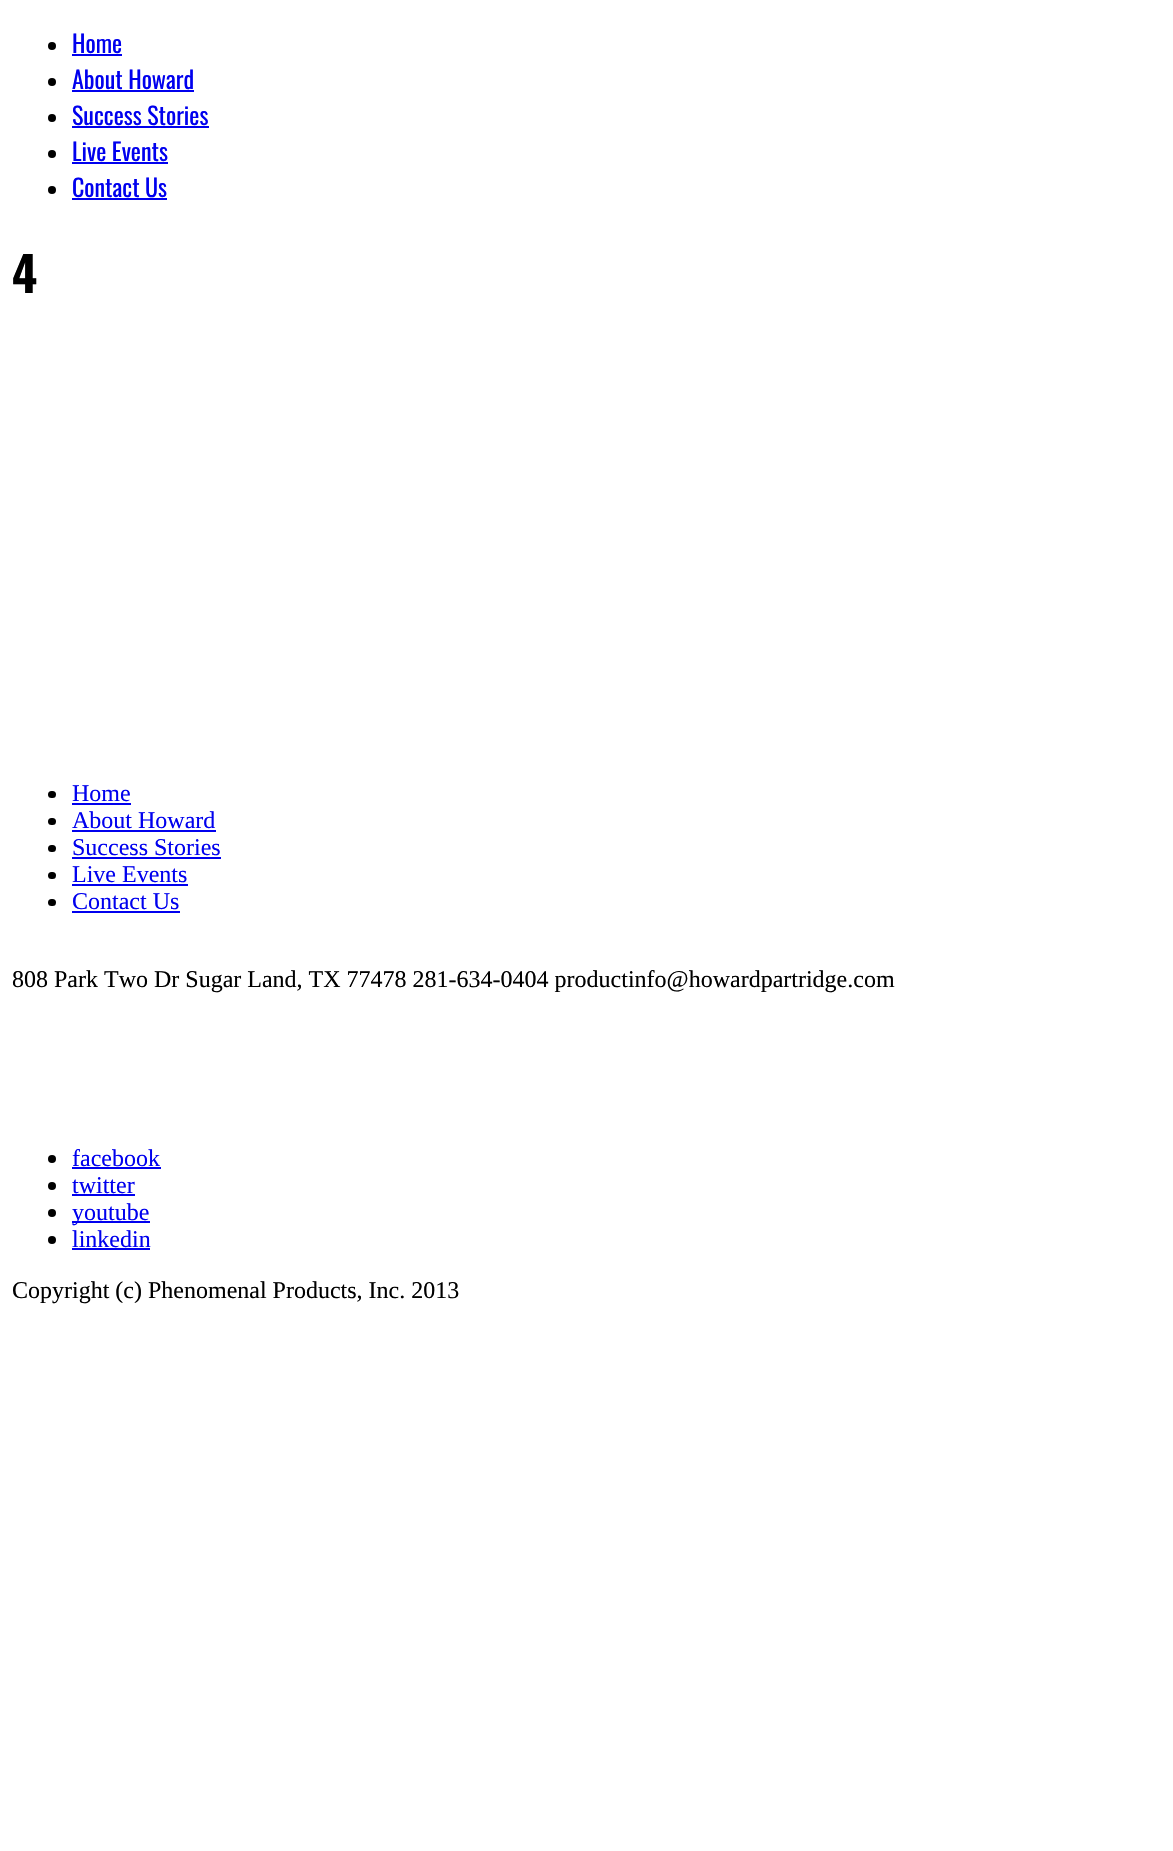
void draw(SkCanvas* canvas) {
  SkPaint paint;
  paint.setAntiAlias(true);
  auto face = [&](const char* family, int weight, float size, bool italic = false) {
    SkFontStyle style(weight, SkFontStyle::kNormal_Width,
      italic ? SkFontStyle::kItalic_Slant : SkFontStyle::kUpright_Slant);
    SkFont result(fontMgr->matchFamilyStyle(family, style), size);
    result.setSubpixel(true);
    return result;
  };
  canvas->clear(0xffffffff);
  paint.setColor(0xff000000);
  canvas->drawCircle(52, 46, 4, paint);
  paint.setColor(0xff0000ee);
  canvas->drawRect(SkRect::MakeXYWH(72, 54, 50, 2), paint);
  paint.setColor(0xff000000);
  canvas->drawCircle(52, 82, 4, paint);
  paint.setColor(0xff0000ee);
  canvas->drawRect(SkRect::MakeXYWH(72, 90, 122, 2), paint);
  paint.setColor(0xff000000);
  canvas->drawCircle(52, 118, 4, paint);
  paint.setColor(0xff0000ee);
  canvas->drawRect(SkRect::MakeXYWH(72, 126, 137, 2), paint);
  paint.setColor(0xff000000);
  canvas->drawCircle(52, 154, 4, paint);
  paint.setColor(0xff0000ee);
  canvas->drawRect(SkRect::MakeXYWH(72, 162, 96, 2), paint);
  paint.setColor(0xff000000);
  canvas->drawCircle(52, 190, 4, paint);
  paint.setColor(0xff0000ee);
  canvas->drawRect(SkRect::MakeXYWH(72, 198, 95, 2), paint);
  paint.setColor(0xff000000);
  canvas->drawRoundRect(SkRect::MakeXYWH(48, 791, 8, 7), 3.5f, 3.5f, paint);
  paint.setColor(0xff0000ee);
  canvas->drawRect(SkRect::MakeXYWH(72, 803, 59, 2), paint);
  paint.setColor(0xff000000);
  canvas->drawRoundRect(SkRect::MakeXYWH(48, 818, 8, 7), 3.5f, 3.5f, paint);
  paint.setColor(0xff0000ee);
  canvas->drawRect(SkRect::MakeXYWH(72, 830, 144, 2), paint);
  paint.setColor(0xff000000);
  canvas->drawRoundRect(SkRect::MakeXYWH(48, 845, 8, 7), 3.5f, 3.5f, paint);
  paint.setColor(0xff0000ee);
  canvas->drawRect(SkRect::MakeXYWH(72, 857, 149, 2), paint);
  paint.setColor(0xff000000);
  canvas->drawRoundRect(SkRect::MakeXYWH(48, 872, 8, 7), 3.5f, 3.5f, paint);
  paint.setColor(0xff0000ee);
  canvas->drawRect(SkRect::MakeXYWH(72, 884, 116, 2), paint);
  paint.setColor(0xff000000);
  canvas->drawRoundRect(SkRect::MakeXYWH(48, 899, 8, 7), 3.5f, 3.5f, paint);
  paint.setColor(0xff0000ee);
  canvas->drawRect(SkRect::MakeXYWH(72, 911, 108, 2), paint);
  paint.setColor(0xff000000);
  canvas->drawCircle(52, 1159, 4, paint);
  paint.setColor(0xff0000ee);
  canvas->drawRect(SkRect::MakeXYWH(72, 1167, 89, 2), paint);
  paint.setColor(0xff000000);
  canvas->drawCircle(52, 1186, 4, paint);
  paint.setColor(0xff0000ee);
  canvas->drawRect(SkRect::MakeXYWH(72, 1194, 63, 2), paint);
  paint.setColor(0xff000000);
  canvas->drawCircle(52, 1213, 4, paint);
  paint.setColor(0xff0000ee);
  canvas->drawRect(SkRect::MakeXYWH(72, 1221, 78, 2), paint);
  paint.setColor(0xff000000);
  canvas->drawCircle(52, 1240, 4, paint);
  paint.setColor(0xff0000ee);
  canvas->drawRect(SkRect::MakeXYWH(72, 1248, 78, 2), paint);
  auto f0 = face("Oswald", 400, 24);
  {
    const struct { const char* s; float x, y; } items[] = {
      {"Home", 72, 53},
      {"About Howard", 72, 89},
      {"Success Stories", 72, 125},
      {"Live Events", 72, 161},
      {"Contact Us", 72, 197},
    };
    for (auto [s, x, y] : items) {
      canvas->drawString(s, x, y, f0, paint);
    }
  }
  auto f1 = face("Oswald", 700, 48);
  paint.setColor(0xff000000);
  canvas->drawString("4", 12, 293, f1, paint);
  auto f2 = face("Liberation Serif", 400, 24);
  paint.setColor(0xff0000ee);
  {
    const struct { const char* s; float x, y; } items[] = {
      {"Home", 72, 801},
      {"About Howard", 72, 828},
      {"Success Stories", 72, 855},
      {"Live Events", 72, 882},
      {"Contact Us", 72, 909},
    };
    for (auto [s, x, y] : items) {
      canvas->drawString(s, x, y, f2, paint);
    }
  }
  paint.setColor(0xff000000);
  canvas->drawString("808 Park Two Dr Sugar Land, TX 77478 281-634-0404 productinfo@howardpartridge.com", 12, 987, f2, paint);
  paint.setColor(0xff0000ee);
  {
    const struct { const char* s; float x, y; } items[] = {
      {"facebook", 72, 1166},
      {"twitter", 72, 1193},
      {"youtube", 72, 1220},
      {"linkedin", 72, 1247},
    };
    for (auto [s, x, y] : items) {
      canvas->drawString(s, x, y, f2, paint);
    }
  }
  paint.setColor(0xff000000);
  canvas->drawString("Copyright (c) Phenomenal Products, Inc. 2013", 12, 1298, f2, paint);
}
